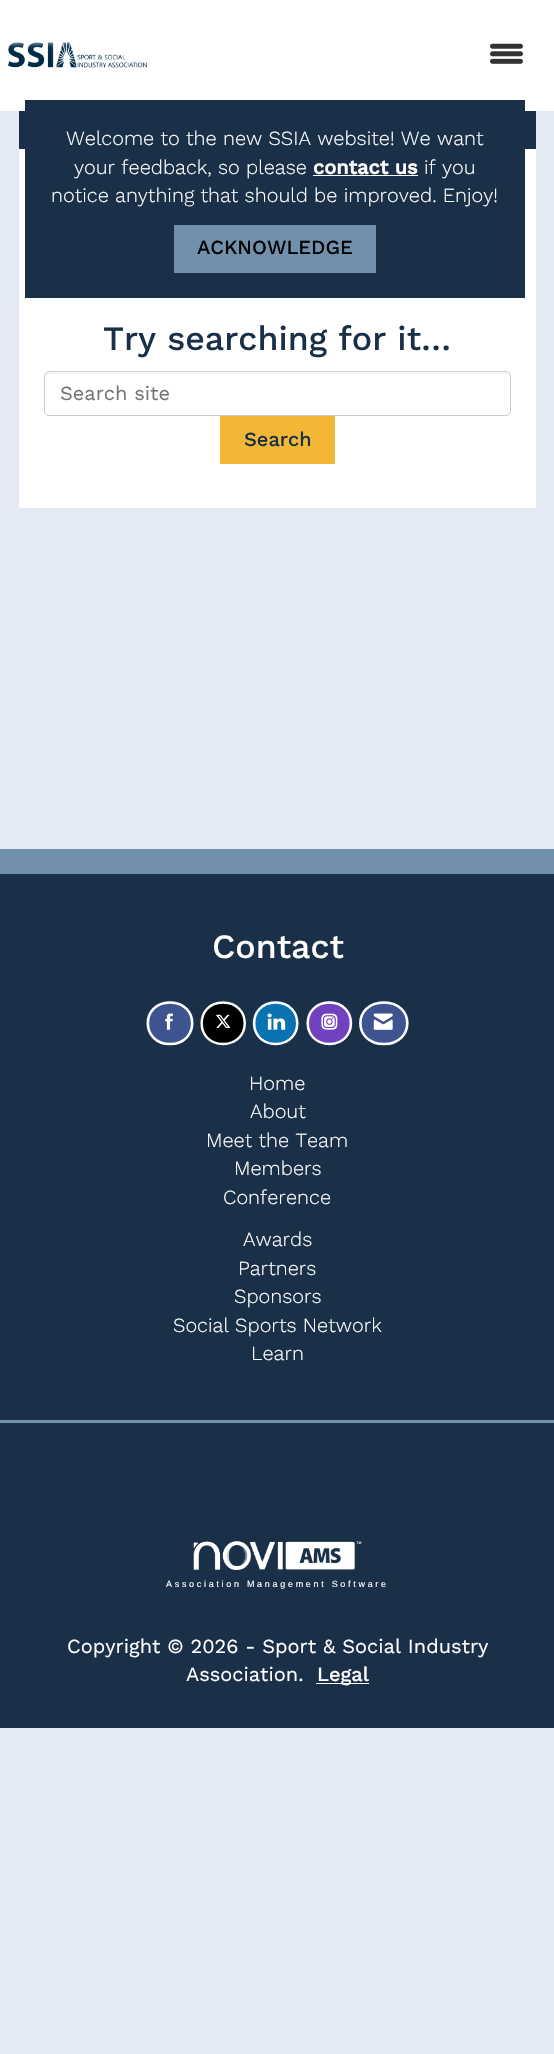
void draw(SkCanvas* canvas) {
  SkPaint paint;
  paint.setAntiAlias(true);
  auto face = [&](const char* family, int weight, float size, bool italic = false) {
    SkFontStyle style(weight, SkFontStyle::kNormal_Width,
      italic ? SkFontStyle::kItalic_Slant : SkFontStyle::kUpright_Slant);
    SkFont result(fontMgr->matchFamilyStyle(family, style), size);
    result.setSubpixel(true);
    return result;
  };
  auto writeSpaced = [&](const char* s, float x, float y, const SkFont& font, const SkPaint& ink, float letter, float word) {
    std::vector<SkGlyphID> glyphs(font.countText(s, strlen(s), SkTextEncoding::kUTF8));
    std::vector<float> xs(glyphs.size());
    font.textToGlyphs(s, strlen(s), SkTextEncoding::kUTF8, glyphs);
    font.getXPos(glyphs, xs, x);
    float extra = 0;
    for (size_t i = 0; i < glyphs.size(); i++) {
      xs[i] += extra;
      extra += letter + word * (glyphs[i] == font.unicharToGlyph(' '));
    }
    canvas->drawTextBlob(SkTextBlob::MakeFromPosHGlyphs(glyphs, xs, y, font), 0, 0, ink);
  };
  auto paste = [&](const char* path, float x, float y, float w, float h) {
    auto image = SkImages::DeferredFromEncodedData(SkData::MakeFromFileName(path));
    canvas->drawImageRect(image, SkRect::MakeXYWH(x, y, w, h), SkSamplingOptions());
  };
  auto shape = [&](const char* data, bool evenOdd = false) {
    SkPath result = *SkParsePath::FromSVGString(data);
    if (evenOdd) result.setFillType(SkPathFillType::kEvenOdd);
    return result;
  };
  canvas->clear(0xffe3eaf3);
  paint.setColor(0xffffffff);
  canvas->drawRect(SkRect::MakeXYWH(0, 0, 554, 111), paint);
  paste("img/1.png", 8, 42, 139, 26);
  paste("img/2.png", 490, 43, 33, 21);
  {
    const struct { float x, y, w, h; SkColor color; } items[] = {
      {19, 111, 517, 38, 0xff193048},
      {19, 149, 517, 359, 0xffffffff},
      {25, 100, 500, 198, 0xff193048},
      {313, 175, 105, 1, 0xffffffff},
      {174, 225, 202, 48, 0xff7090ab},
    };
    for (auto [x, y, w, h, color] : items) {
      paint.setColor(color);
      canvas->drawRect(SkRect::MakeXYWH(x, y, w, h), paint);
    }
  }
  paint.setColor(0xffececec);
  canvas->drawPath(shape("M49 374H506C508 374 510 375 510 378C510 375 509 373 506 373H49C46 373 45 375 45 378C45 375 47 374 49 374Z"), paint);
  paint.setStroke(true);
  paint.setStrokeWidth(1);
  paint.setColor(0xffcccccc);
  canvas->drawRoundRect(SkRect::MakeXYWH(44.5f, 371.5f, 466, 44), 4.5f, 4.5f, paint);
  paint.setStroke(false);
  {
    const struct { float x, y, w, h; SkColor color; } items[] = {
      {220, 416, 115, 48, 0xfff2b835},
      {0, 849, 554, 25, 0xff7090ab},
      {0, 874, 554, 546, 0xff193048},
    };
    for (auto [x, y, w, h, color] : items) {
      paint.setColor(color);
      canvas->drawRect(SkRect::MakeXYWH(x, y, w, h), paint);
    }
  }
  paint.setColor(0xff3e5491);
  canvas->drawOval(SkRect::MakeXYWH(146, 1001, 48, 44), paint);
  paint.setStroke(true);
  paint.setStrokeWidth(2.5f);
  paint.setColor(0xffffffff);
  canvas->drawPath(shape("M170 1002.5C199.5 1002.5 199.5 1044 170 1044C140.5 1044 140.5 1002.5 170 1002.5Z"), paint);
  paste("img/3.png", 165, 1013, 8, 17);
  paint.setStroke(false);
  paint.setColor(0xff000000);
  canvas->drawOval(SkRect::MakeXYWH(200, 1001, 46, 44), paint);
  paint.setStroke(true);
  paint.setColor(0xffffffff);
  canvas->drawPath(shape("M223 1002.5C252 1002.5 252 1044 223 1044C194.5 1044 194.5 1002.5 223 1002.5Z"), paint);
  paste("img/4.png", 216, 1014, 15, 14);
  paint.setStroke(false);
  paint.setColor(0xff0972b1);
  canvas->drawOval(SkRect::MakeXYWH(252.5f, 1001, 46, 44), paint);
  paint.setStroke(true);
  paint.setColor(0xffffffff);
  canvas->drawPath(shape("M275.5 1002.5C304.5 1002.5 304.5 1044 275.5 1044C247 1044 247 1002.5 275.5 1002.5Z"), paint);
  paste("img/5.png", 267, 1013, 19, 17);
  paint.setStroke(false);
  paint.setColor(0xff7042c0);
  canvas->drawOval(SkRect::MakeXYWH(306.5f, 1001, 46, 44), paint);
  paint.setStroke(true);
  paint.setColor(0xffffffff);
  canvas->drawPath(shape("M329.5 1002.5C358 1002.5 358 1044 329.5 1044C300.5 1044 300.5 1002.5 329.5 1002.5Z"), paint);
  paste("img/6.png", 321, 1013, 17, 17);
  paint.setStroke(false);
  paint.setColor(0xff3e5491);
  canvas->drawOval(SkRect::MakeXYWH(359, 1001, 50, 44), paint);
  paint.setStroke(true);
  paint.setColor(0xffffffff);
  canvas->drawPath(shape("M384 1002.5C415 1002.5 415 1044 384 1044C352.5 1044 352.5 1002.5 384 1002.5Z"), paint);
  paste("img/7.png", 373, 1013, 20, 17);
  paint.setStroke(false);
  paint.setColor(0xff193048);
  canvas->drawRect(SkRect::MakeXYWH(0, 1423, 554, 305), paint);
  paint.setColor(0xff7090ab);
  canvas->drawRect(SkRect::MakeXYWH(0, 1420, 554, 3), paint);
  paste("img/8.png", 193, 1541, 169, 29);
  paint.setColor(0xffffffff);
  canvas->drawRect(SkRect::MakeXYWH(316, 1683, 53, 1), paint);
  auto f0 = face("Work Sans", 300, 20);
  canvas->drawString("Welcome to the new SSIA website! We want", 66, 145, f0, paint);
  canvas->drawString("your feedback, so please", 74, 174, f0, paint);
  auto f1 = face("Work Sans", 700, 20);
  canvas->drawString("contact us", 313, 174, f1, paint);
  canvas->drawString("if you", 424, 174, f0, paint);
  canvas->drawString("notice anything that should be improved. Enjoy!", 51, 202, f0, paint);
  auto f2 = face("Work Sans", 500, 20);
  paint.setColor(0xff000000);
  canvas->drawString("ACKNOWLEDGE", 197, 254, f2, paint);
  auto f3 = face("Work Sans", 500, 34);
  paint.setColor(0xff193048);
  canvas->drawString("Try searching for it…", 103, 350, f3, paint);
  auto f4 = face("Work Sans", 400, 20);
  paint.setColor(0xff757575);
  canvas->drawString("Search site", 60, 400, f4, paint);
  paint.setColor(0xff193048);
  canvas->drawString("Search", 244, 446, f2, paint);
  paint.setColor(0xffffffff);
  canvas->drawString("Contact", 212, 958, f3, paint);
  {
    const struct { const char* s; float x, y; } items[] = {
      {"Home", 249, 1090},
      {"About", 250, 1118},
      {"Meet the Team", 206, 1147},
      {"Members", 234, 1175},
      {"Conference", 223, 1204},
      {"Awards", 243, 1246},
      {"Partners", 238, 1275},
      {"Sponsors", 234, 1303},
      {"Social Sports Network", 173, 1332},
      {"Learn", 251, 1360},
    };
    for (auto [s, x, y] : items) {
      canvas->drawString(s, x, y, f0, paint);
    }
  }
  auto f5 = face("Liberation Sans", 400, 9);
  writeSpaced("Association Management Software", 166, 1587, f5, paint, 2.7f, 0);
  canvas->drawString("Copyright © 2026 - Sport & Social Industry", 67, 1653, f4, paint);
  canvas->drawString("Association.", 186, 1681, f4, paint);
  canvas->drawString("Legal", 317, 1681, f2, paint);
}
